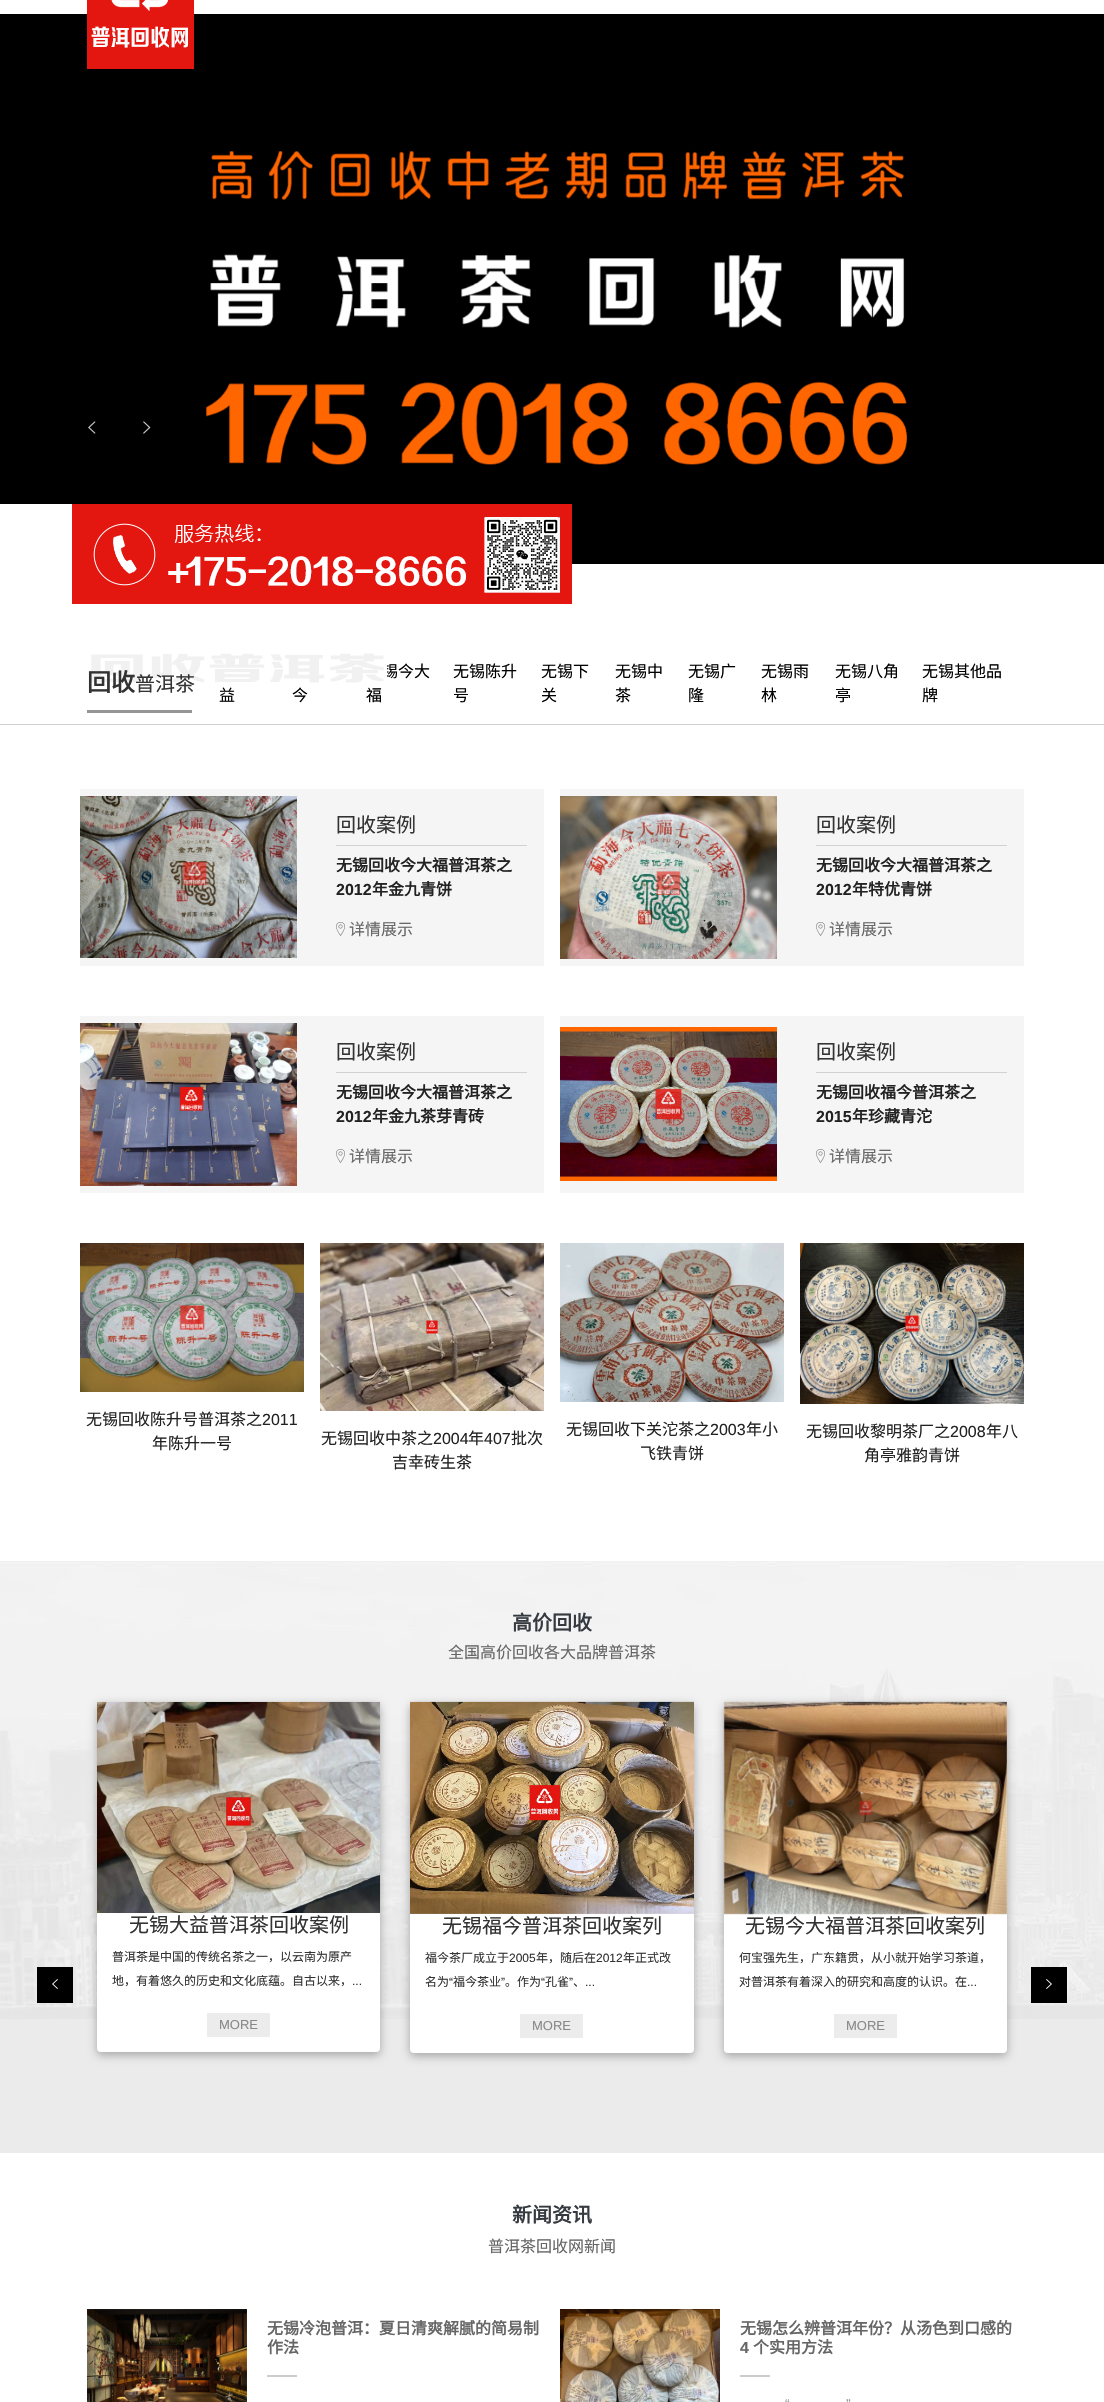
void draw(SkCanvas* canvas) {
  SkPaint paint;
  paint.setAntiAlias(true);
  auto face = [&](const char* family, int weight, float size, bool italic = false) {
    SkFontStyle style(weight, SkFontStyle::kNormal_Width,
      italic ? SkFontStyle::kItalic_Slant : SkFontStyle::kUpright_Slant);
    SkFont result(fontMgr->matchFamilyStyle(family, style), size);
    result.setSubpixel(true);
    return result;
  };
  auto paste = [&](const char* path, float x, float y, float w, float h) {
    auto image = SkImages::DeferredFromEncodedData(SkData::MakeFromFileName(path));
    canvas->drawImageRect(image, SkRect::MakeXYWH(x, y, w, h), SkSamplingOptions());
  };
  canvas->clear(0xffffffff);
  paint.setColor(0xff000000);
  canvas->drawRect(SkRect::MakeXYWH(0, 14, 1104, 550), paint);
  paste("img/1.png", 87, 0, 107, 69);
  paste("img/2.png", 88, 421, 8, 13);
  paste("img/3.png", 143, 421, 8, 13);
  paste("img/4.png", 206, 151, 701, 314);
  paint.setColor(0xffffffff);
  canvas->drawRect(SkRect::MakeXYWH(0, 504, 72, 60), paint);
  paste("img/5.png", 72, 504, 500, 100);
  {
    const struct { float x, y, w, h; SkColor color; } items[] = {
      {87, 710, 105, 3, 0xff959595},
      {0, 724, 1104, 1, 0xffd0d0d0},
      {80, 789, 464, 177, 0xfff5f5f5},
    };
    for (auto [x, y, w, h, color] : items) {
      paint.setColor(color);
      canvas->drawRect(SkRect::MakeXYWH(x, y, w, h), paint);
    }
  }
  paste("img/7.png", 80, 796, 217, 162);
  paint.setColor(0xffd0d1d1);
  canvas->drawRect(SkRect::MakeXYWH(336, 845, 191, 1), paint);
  paste("img/8.png", 336, 922, 9, 14);
  paint.setColor(0xfff5f5f5);
  canvas->drawRect(SkRect::MakeXYWH(560, 789, 464, 177), paint);
  paste("img/9.png", 560, 796, 217, 163);
  paint.setColor(0xffd0d1d1);
  canvas->drawRect(SkRect::MakeXYWH(816, 845, 191, 1), paint);
  paste("img/8.png", 816, 922, 9, 14);
  paint.setColor(0xfff5f5f5);
  canvas->drawRect(SkRect::MakeXYWH(80, 1016, 464, 177), paint);
  paste("img/10.png", 80, 1023, 217, 163);
  paint.setColor(0xffd0d1d1);
  canvas->drawRect(SkRect::MakeXYWH(336, 1072, 191, 1), paint);
  paste("img/8.png", 336, 1149, 9, 14);
  paint.setColor(0xfff5f5f5);
  canvas->drawRect(SkRect::MakeXYWH(560, 1016, 464, 177), paint);
  paste("img/11.png", 560, 1027, 217, 154);
  paint.setColor(0xffd0d1d1);
  canvas->drawRect(SkRect::MakeXYWH(816, 1072, 191, 1), paint);
  paste("img/8.png", 816, 1149, 9, 14);
  paste("img/12.png", 80, 1243, 224, 149);
  paste("img/13.png", 320, 1243, 224, 168);
  paste("img/14.png", 560, 1243, 224, 159);
  paste("img/15.png", 800, 1243, 224, 161);
  paint.setColor(0xffebebeb);
  canvas->drawRect(SkRect::MakeXYWH(0, 2019, 1104, 134), paint);
  paste("img/16.png", 0, 1561, 1104, 458);
  paint.setColor(0x4d000000);
  paint.setMaskFilter(SkMaskFilter::MakeBlur(kNormal_SkBlurStyle, 5));
  canvas->drawRoundRect(SkRect::MakeXYWH(97, 1705, 283, 350), 4, 4, paint);
  paint.setMaskFilter(nullptr);
  paint.setColor(0xffffffff);
  canvas->drawRoundRect(SkRect::MakeXYWH(97, 1702, 283, 350), 4, 4, paint);
  paste("img/17.png", 97, 1701, 284, 212);
  paint.setColor(0xffececec);
  canvas->drawRect(SkRect::MakeXYWH(207, 2013, 63, 24), paint);
  paint.setColor(0x4d000000);
  paint.setMaskFilter(SkMaskFilter::MakeBlur(kNormal_SkBlurStyle, 5));
  canvas->drawRoundRect(SkRect::MakeXYWH(410, 1705, 284, 351), 4, 4, paint);
  paint.setMaskFilter(nullptr);
  paint.setColor(0xffffffff);
  canvas->drawRoundRect(SkRect::MakeXYWH(410, 1702, 284, 351), 4, 4, paint);
  paste("img/18.png", 410, 1701, 284, 213);
  paint.setColor(0xffececec);
  canvas->drawRect(SkRect::MakeXYWH(520, 2014, 63, 24), paint);
  paint.setColor(0x4d000000);
  paint.setMaskFilter(SkMaskFilter::MakeBlur(kNormal_SkBlurStyle, 5));
  canvas->drawRoundRect(SkRect::MakeXYWH(724, 1705, 283, 351), 4, 4, paint);
  paint.setMaskFilter(nullptr);
  paint.setColor(0xffffffff);
  canvas->drawRoundRect(SkRect::MakeXYWH(724, 1702, 283, 351), 4, 4, paint);
  paste("img/19.png", 723, 1701, 284, 214);
  paint.setColor(0xffececec);
  canvas->drawRect(SkRect::MakeXYWH(834, 2014, 63, 24), paint);
  paint.setColor(0xff000000);
  canvas->drawRect(SkRect::MakeXYWH(37, 1967, 36, 36), paint);
  paste("img/20.png", 52, 1979, 6, 10);
  canvas->drawRect(SkRect::MakeXYWH(1031, 1967, 36, 36), paint);
  paste("img/21.png", 1046, 1979, 6, 10);
  paste("img/22.png", 87, 2309, 160, 93);
  paint.setColor(0xffcccccc);
  canvas->drawRect(SkRect::MakeXYWH(267, 2375, 30, 2), paint);
  paste("img/23.png", 560, 2309, 160, 93);
  canvas->drawRect(SkRect::MakeXYWH(740, 2375, 30, 2), paint);
  auto f0 = face("Noto Sans CJK SC", 400, 16);
  paint.setColor(0xff000000);
  {
    const struct { const char* s; float x, y; } items[] = {
      {"益", 219, 701},
      {"今", 292, 701},
      {"锡今大", 382, 677},
    };
    for (auto [s, x, y] : items) {
      canvas->drawString(s, x, y, f0, paint);
    }
  }
  paste("img/6.png", 91, 653, 296, 30);
  auto f1 = face("Noto Sans CJK SC", 400, 20);
  paint.setColor(0xff333333);
  canvas->drawString("普洱茶", 135, 691, f1, paint);
  auto f2 = face("Noto Sans CJK SC", 700, 24);
  canvas->drawString("回收", 87, 691, f2, paint);
  paint.setColor(0xff000000);
  {
    const struct { const char* s; float x, y; } items[] = {
      {"福", 366, 701},
      {"无锡陈升", 453, 677},
      {"号", 453, 701},
      {"无锡下", 541, 677},
      {"关", 541, 701},
      {"无锡中", 615, 677},
      {"茶", 615, 701},
      {"无锡广", 688, 677},
      {"隆", 688, 701},
      {"无锡雨", 761, 677},
      {"林", 761, 701},
      {"无锡八角", 835, 677},
      {"亭", 835, 701},
      {"无锡其他品", 922, 677},
      {"牌", 922, 701},
    };
    for (auto [s, x, y] : items) {
      canvas->drawString(s, x, y, f0, paint);
    }
  }
  paint.setColor(0xff333333);
  canvas->drawString("回收案例", 336, 832, f1, paint);
  auto f3 = face("Noto Sans CJK SC", 700, 16);
  paint.setColor(0xff222222);
  canvas->drawString("无锡回收今大福普洱茶之", 336, 871, f3, paint);
  auto f4 = face("Liberation Sans", 700, 16);
  canvas->drawString("2012", 336, 895, f4, paint);
  canvas->drawString("年金九青饼", 372, 895, f3, paint);
  paint.setColor(0xff666666);
  canvas->drawString("详情展示", 349, 935, f0, paint);
  paint.setColor(0xff333333);
  canvas->drawString("回收案例", 816, 832, f1, paint);
  paint.setColor(0xff222222);
  canvas->drawString("无锡回收今大福普洱茶之", 816, 871, f3, paint);
  canvas->drawString("2012", 816, 895, f4, paint);
  canvas->drawString("年特优青饼", 852, 895, f3, paint);
  paint.setColor(0xff666666);
  canvas->drawString("详情展示", 829, 935, f0, paint);
  paint.setColor(0xff333333);
  canvas->drawString("回收案例", 336, 1059, f1, paint);
  paint.setColor(0xff222222);
  canvas->drawString("无锡回收今大福普洱茶之", 336, 1098, f3, paint);
  canvas->drawString("2012", 336, 1122, f4, paint);
  canvas->drawString("年金九茶芽青砖", 372, 1122, f3, paint);
  paint.setColor(0xff666666);
  canvas->drawString("详情展示", 349, 1162, f0, paint);
  paint.setColor(0xff333333);
  canvas->drawString("回收案例", 816, 1059, f1, paint);
  paint.setColor(0xff222222);
  canvas->drawString("无锡回收福今普洱茶之", 816, 1098, f3, paint);
  canvas->drawString("2015", 816, 1122, f4, paint);
  canvas->drawString("年珍藏青沱", 852, 1122, f3, paint);
  paint.setColor(0xff666666);
  canvas->drawString("详情展示", 829, 1162, f0, paint);
  paint.setColor(0xff222222);
  canvas->drawString("无锡回收陈升号普洱茶之", 86, 1425, f0, paint);
  auto f5 = face("Liberation Sans", 400, 16);
  canvas->drawString("2011", 262, 1425, f5, paint);
  canvas->drawString("年陈升一号", 152, 1449, f0, paint);
  canvas->drawString("无锡回收中茶之", 321, 1444, f0, paint);
  canvas->drawString("2004", 433, 1444, f5, paint);
  canvas->drawString("年", 468, 1444, f0, paint);
  canvas->drawString("407", 484, 1444, f5, paint);
  {
    const struct { const char* s; float x, y; } items[] = {
      {"批次", 511, 1444},
      {"吉幸砖生茶", 392, 1468},
      {"无锡回收下关沱茶之", 566, 1435},
    };
    for (auto [s, x, y] : items) {
      canvas->drawString(s, x, y, f0, paint);
    }
  }
  canvas->drawString("2003", 710, 1435, f5, paint);
  {
    const struct { const char* s; float x, y; } items[] = {
      {"年小", 746, 1435},
      {"飞铁青饼", 640, 1459},
      {"无锡回收黎明茶厂之", 806, 1437},
    };
    for (auto [s, x, y] : items) {
      canvas->drawString(s, x, y, f0, paint);
    }
  }
  canvas->drawString("2008", 950, 1437, f5, paint);
  canvas->drawString("年八", 986, 1437, f0, paint);
  canvas->drawString("角亭雅韵青饼", 864, 1461, f0, paint);
  auto f6 = face("Noto Sans CJK SC", 700, 20);
  paint.setColor(0xff343a40);
  canvas->drawString("高价回收", 512, 1630, f6, paint);
  paint.setColor(0xff666666);
  canvas->drawString("全国高价回收各大品牌普洱茶", 448, 1658, f0, paint);
  paint.setColor(0xff333333);
  canvas->drawString("无锡大益普洱茶回收案例", 129, 1932, f1, paint);
  auto f7 = face("Noto Sans CJK SC", 400, 12);
  canvas->drawString("普洱茶是中国的传统名茶之一，以云南为原产", 112, 1961, f7, paint);
  canvas->drawString("地，有着悠久的历史和文化底蕴。自古以来，", 112, 1985, f7, paint);
  auto f8 = face("Liberation Sans", 400, 12);
  canvas->drawString("...", 352, 1985, f8, paint);
  auto f9 = face("Liberation Sans", 400, 13);
  paint.setColor(0xff888888);
  canvas->drawString("MORE", 219, 2029, f9, paint);
  paint.setColor(0xff333333);
  canvas->drawString("无锡福今普洱茶回收案列", 442, 1933, f1, paint);
  canvas->drawString("福今茶厂成立于", 425, 1962, f7, paint);
  canvas->drawString("2005", 509, 1962, f8, paint);
  canvas->drawString("年，随后在", 536, 1962, f7, paint);
  canvas->drawString("2012", 596, 1962, f8, paint);
  canvas->drawString("年正式改", 623, 1962, f7, paint);
  canvas->drawString("名为", 425, 1986, f7, paint);
  canvas->drawString("“", 449, 1986, f8, paint);
  canvas->drawString("福今茶业", 453, 1986, f7, paint);
  canvas->drawString("”", 501, 1986, f8, paint);
  canvas->drawString("。作为", 505, 1986, f7, paint);
  canvas->drawString("“", 541, 1986, f8, paint);
  canvas->drawString("孔雀", 545, 1986, f7, paint);
  canvas->drawString("”", 569, 1986, f8, paint);
  canvas->drawString("、", 573, 1986, f7, paint);
  canvas->drawString("...", 585, 1986, f8, paint);
  paint.setColor(0xff888888);
  canvas->drawString("MORE", 532, 2030, f9, paint);
  paint.setColor(0xff333333);
  canvas->drawString("无锡今大福普洱茶回收案列", 745, 1933, f1, paint);
  canvas->drawString("何宝强先生，广东籍贯，从小就开始学习茶道，", 739, 1962, f7, paint);
  canvas->drawString("对普洱茶有着深入的研究和高度的认识。在", 739, 1986, f7, paint);
  canvas->drawString("...", 967, 1986, f8, paint);
  paint.setColor(0xff888888);
  canvas->drawString("MORE", 846, 2030, f9, paint);
  paint.setColor(0xff343a40);
  canvas->drawString("新闻资讯", 512, 2222, f6, paint);
  paint.setColor(0xff666666);
  canvas->drawString("普洱茶回收网新闻", 488, 2252, f0, paint);
  {
    const struct { const char* s; float x, y; } items[] = {
      {"无锡冷泡普洱：夏日清爽解腻的简易制", 267, 2334},
      {"作法", 267, 2353},
      {"无锡怎么辨普洱年份？从汤色到口感的", 740, 2334},
    };
    for (auto [s, x, y] : items) {
      canvas->drawString(s, x, y, f3, paint);
    }
  }
  canvas->drawString("4", 740, 2353, f4, paint);
  canvas->drawString("个实用方法", 753, 2353, f3, paint);
  auto f10 = face("Liberation Sans", 400, 14);
  paint.setColor(0xff999999);
  canvas->drawString("“", 785, 2409, f10, paint);
  canvas->drawString("”", 846, 2409, f10, paint);
}
